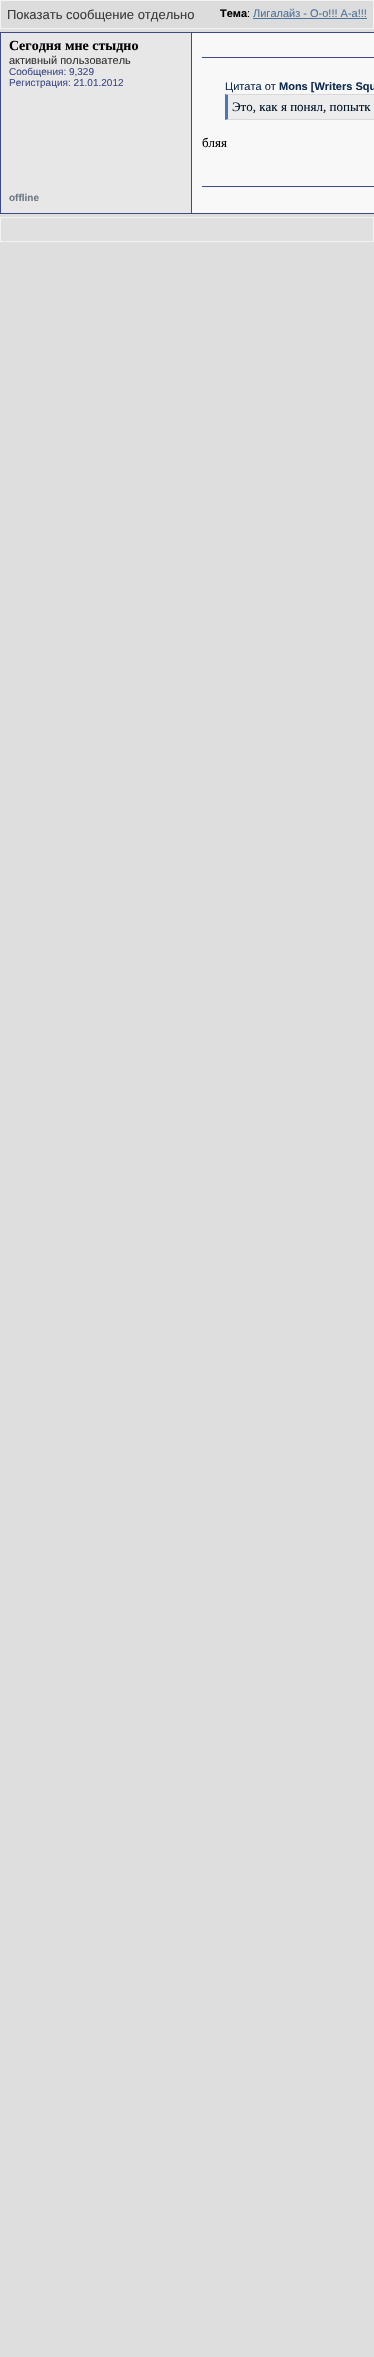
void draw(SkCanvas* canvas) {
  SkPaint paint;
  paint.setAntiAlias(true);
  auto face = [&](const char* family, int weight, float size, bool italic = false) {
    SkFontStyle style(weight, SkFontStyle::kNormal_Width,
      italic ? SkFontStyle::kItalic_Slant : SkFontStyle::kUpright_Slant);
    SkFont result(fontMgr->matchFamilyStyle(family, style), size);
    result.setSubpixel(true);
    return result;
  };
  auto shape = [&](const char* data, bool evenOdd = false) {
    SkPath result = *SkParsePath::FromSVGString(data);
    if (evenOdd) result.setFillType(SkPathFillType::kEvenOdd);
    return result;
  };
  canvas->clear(0xffdedede);
  {
    const struct { float x, y, w, h; SkColor color; } items[] = {
      {0, 0, 374, 29, 0xfff3f3f3},
      {1, 1, 372, 27, 0xffdcdcdc},
      {253, 18, 114, 1, 0xff4e729b},
    };
    for (auto [x, y, w, h, color] : items) {
      paint.setColor(color);
      canvas->drawRect(SkRect::MakeXYWH(x, y, w, h), paint);
    }
  }
  paint.setStroke(true);
  paint.setStrokeWidth(1);
  paint.setColor(0xff3e4a87);
  canvas->drawRect(SkRect::MakeXYWH(0.5f, 32.5f, 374, 181), paint);
  paint.setStroke(false);
  {
    const struct { float x, y, w, h; SkColor color; } items[] = {
      {1, 33, 190, 180, 0xffe7e7e7},
      {191, 33, 1, 180, 0xff3e4a87},
      {192, 33, 182, 180, 0xfff8f8f8},
      {202, 57, 172, 1, 0xff3e4a87},
      {225, 94, 149, 26, 0xffececec},
    };
    for (auto [x, y, w, h, color] : items) {
      paint.setColor(color);
      canvas->drawRect(SkRect::MakeXYWH(x, y, w, h), paint);
    }
  }
  paint.setColor(0xffd8d8d8);
  canvas->drawPath(shape("M225 94H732V95H228Z"), paint);
  canvas->drawPath(shape("M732 120H225L228 119H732Z"), paint);
  paint.setColor(0xff4b78b0);
  canvas->drawPath(shape("M225 120V94L228 95V119Z"), paint);
  {
    const struct { float x, y, w, h; SkColor color; } items[] = {
      {202, 186, 172, 1, 0xff3e4a87},
      {0, 217, 374, 25, 0xfff3f3f3},
      {1, 218, 372, 23, 0xffe0e0e0},
    };
    for (auto [x, y, w, h, color] : items) {
      paint.setColor(color);
      canvas->drawRect(SkRect::MakeXYWH(x, y, w, h), paint);
    }
  }
  auto f0 = face("Liberation Sans", 400, 13);
  paint.setColor(0xff3c3c3c);
  canvas->drawString("Показать сообщение отдельно", 7, 19, f0, paint);
  auto f1 = face("Liberation Sans", 700, 11);
  paint.setColor(0xff000000);
  canvas->drawString("Тема", 220, 17, f1, paint);
  auto f2 = face("Liberation Sans", 400, 11);
  canvas->drawString(":", 247, 17, f2, paint);
  paint.setColor(0xff4e729b);
  canvas->drawString("Лигалайз - О-о!!! А-а!!!", 253, 17, f2, paint);
  auto f3 = face("Liberation Serif", 700, 14);
  paint.setColor(0xff000000);
  canvas->drawString("Сегодня мне стыдно", 9, 50, f3, paint);
  paint.setColor(0xff333333);
  canvas->drawString("активный пользователь", 9, 64, f2, paint);
  auto f4 = face("Liberation Sans", 400, 10);
  paint.setColor(0xff3e4a87);
  canvas->drawString("Сообщения: 9,329", 9, 75, f4, paint);
  canvas->drawString("Регистрация: 21.01.2012", 9, 86, f4, paint);
  paint.setColor(0xff0f2c50);
  canvas->drawString("Цитата от", 225, 90, f2, paint);
  canvas->drawString("Mons [Writers Squ", 279, 90, f1, paint);
  auto f5 = face("Liberation Serif", 400, 13);
  paint.setColor(0xff001428);
  canvas->drawString("Это, как я понял, попытк", 232, 111, f5, paint);
  paint.setColor(0xff000000);
  canvas->drawString("бляя", 202, 147, f5, paint);
  auto f6 = face("Liberation Sans", 700, 10);
  paint.setColor(0xff6d7985);
  canvas->drawString("offline", 9, 201, f6, paint);
}
